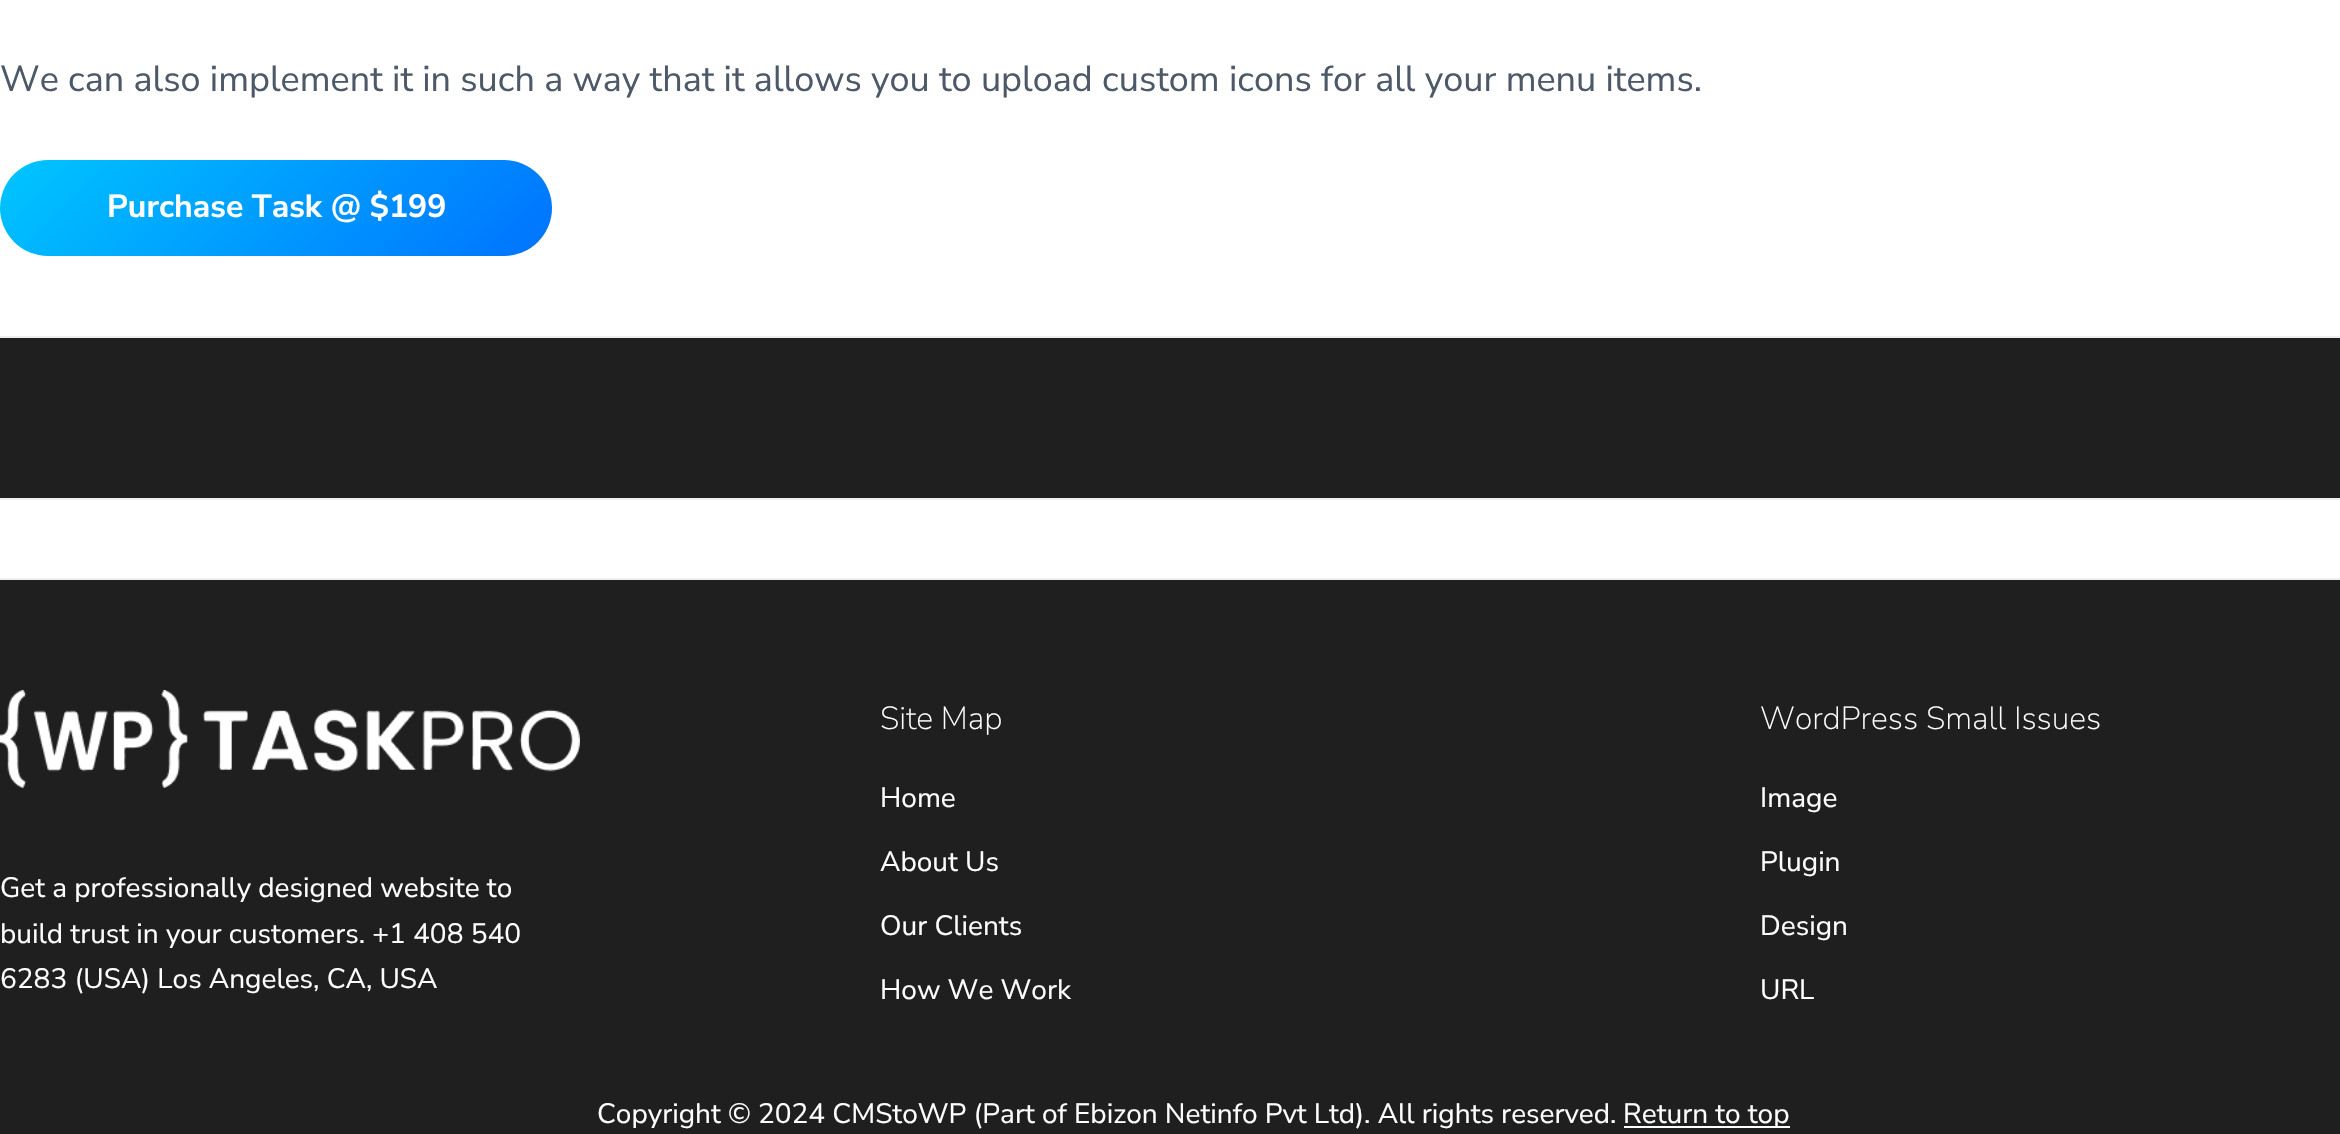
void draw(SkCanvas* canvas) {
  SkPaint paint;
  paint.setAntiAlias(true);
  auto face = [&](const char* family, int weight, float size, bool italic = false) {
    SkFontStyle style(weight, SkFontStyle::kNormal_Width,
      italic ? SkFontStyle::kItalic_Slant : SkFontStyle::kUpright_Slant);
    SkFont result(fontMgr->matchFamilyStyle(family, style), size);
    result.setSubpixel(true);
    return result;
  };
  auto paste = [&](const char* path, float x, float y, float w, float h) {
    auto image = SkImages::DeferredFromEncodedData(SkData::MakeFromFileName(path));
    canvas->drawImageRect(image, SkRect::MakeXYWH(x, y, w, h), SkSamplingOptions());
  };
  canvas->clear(0xffffffff);
  {
    const SkColor colors[] = {0xff00c6ff, 0xff0072ff};
    const float stops[] = {0, 1};
    const SkPoint ends[] = {{114, 46}, {438, 370}};
    paint.setShader(SkGradientShader::MakeLinear(ends, colors, stops, 2, SkTileMode::kClamp));
    paint.setAlpha(255);
  }
  canvas->drawRoundRect(SkRect::MakeXYWH(0, 160, 552, 96), 48, 48, paint);
  paint.setShader(nullptr);
  {
    const struct { float x, y, w, h; SkColor color; } items[] = {
      {0, 338, 2340, 160, 0xff1f1f1f},
      {0, 336, 2340, 2, 0xffeceef1},
      {0, 498, 2340, 2, 0xffeceef1},
      {0, 580, 2340, 554, 0xff1f1f1f},
      {0, 578, 2340, 2, 0xffeceef1},
    };
    for (auto [x, y, w, h, color] : items) {
      paint.setColor(color);
      canvas->drawRect(SkRect::MakeXYWH(x, y, w, h), paint);
    }
  }
  paste("img/1.png", 0, 690, 580, 98);
  paint.setColor(0xffffffff);
  canvas->drawRect(SkRect::MakeXYWH(1624, 1126, 166, 2), paint);
  auto f0 = face("Nunito Sans", 400, 36);
  paint.setColor(0xff4d5968);
  canvas->drawString("We can also implement it in such a way that it allows you to upload custom icons for all your menu items.", 0, 91, f0, paint);
  auto f1 = face("Nunito Sans", 700, 32);
  paint.setColor(0xffffffff);
  canvas->drawString("Purchase Task @ $199", 107, 217, f1, paint);
  auto f2 = face("Nunito Sans", 400, 28);
  {
    const struct { const char* s; float x, y; } items[] = {
      {"Get a professionally designed website to", 0, 897},
      {"build trust in your customers. +1 408 540", 0, 943},
      {"6283 (USA) Los Angeles, CA, USA", 0, 988},
    };
    for (auto [s, x, y] : items) {
      canvas->drawString(s, x, y, f2, paint);
    }
  }
  auto f3 = face("Nunito Sans", 200, 32);
  canvas->drawString("Site Map", 880, 729, f3, paint);
  {
    const struct { const char* s; float x, y; } items[] = {
      {"Home", 880, 807},
      {"About Us", 880, 871},
      {"Our Clients", 880, 935},
      {"How We Work", 880, 999},
    };
    for (auto [s, x, y] : items) {
      canvas->drawString(s, x, y, f2, paint);
    }
  }
  canvas->drawString("WordPress Small Issues", 1760, 729, f3, paint);
  {
    const struct { const char* s; float x, y; } items[] = {
      {"Image", 1760, 807},
      {"Plugin", 1760, 871},
      {"Design", 1760, 935},
      {"URL", 1760, 999},
      {"Copyright © 2024 CMStoWP (Part of Ebizon Netinfo Pvt Ltd). All rights reserved.", 597, 1123},
      {"Return to top", 1623, 1123},
    };
    for (auto [s, x, y] : items) {
      canvas->drawString(s, x, y, f2, paint);
    }
  }
}
